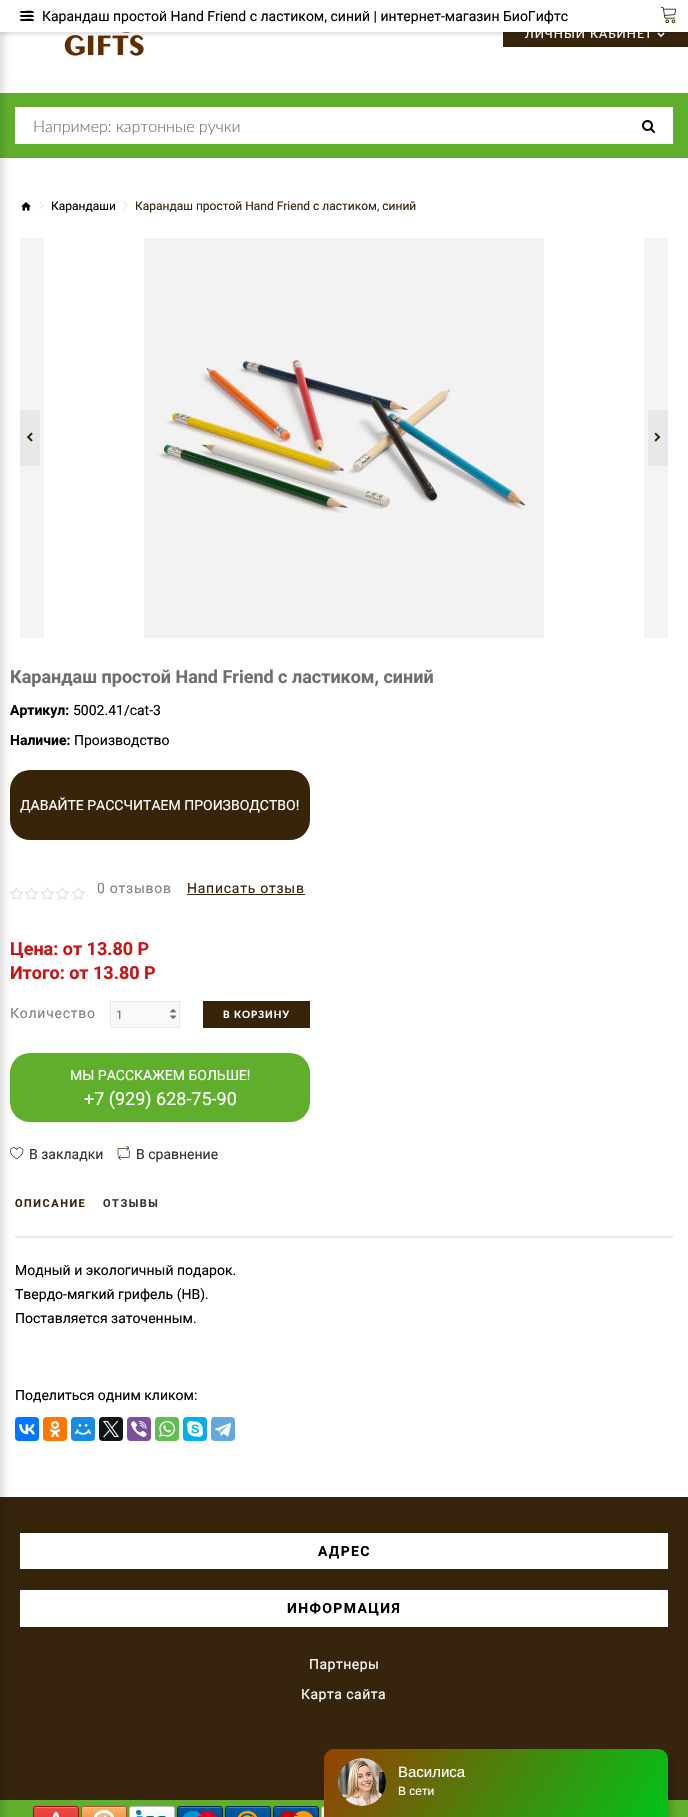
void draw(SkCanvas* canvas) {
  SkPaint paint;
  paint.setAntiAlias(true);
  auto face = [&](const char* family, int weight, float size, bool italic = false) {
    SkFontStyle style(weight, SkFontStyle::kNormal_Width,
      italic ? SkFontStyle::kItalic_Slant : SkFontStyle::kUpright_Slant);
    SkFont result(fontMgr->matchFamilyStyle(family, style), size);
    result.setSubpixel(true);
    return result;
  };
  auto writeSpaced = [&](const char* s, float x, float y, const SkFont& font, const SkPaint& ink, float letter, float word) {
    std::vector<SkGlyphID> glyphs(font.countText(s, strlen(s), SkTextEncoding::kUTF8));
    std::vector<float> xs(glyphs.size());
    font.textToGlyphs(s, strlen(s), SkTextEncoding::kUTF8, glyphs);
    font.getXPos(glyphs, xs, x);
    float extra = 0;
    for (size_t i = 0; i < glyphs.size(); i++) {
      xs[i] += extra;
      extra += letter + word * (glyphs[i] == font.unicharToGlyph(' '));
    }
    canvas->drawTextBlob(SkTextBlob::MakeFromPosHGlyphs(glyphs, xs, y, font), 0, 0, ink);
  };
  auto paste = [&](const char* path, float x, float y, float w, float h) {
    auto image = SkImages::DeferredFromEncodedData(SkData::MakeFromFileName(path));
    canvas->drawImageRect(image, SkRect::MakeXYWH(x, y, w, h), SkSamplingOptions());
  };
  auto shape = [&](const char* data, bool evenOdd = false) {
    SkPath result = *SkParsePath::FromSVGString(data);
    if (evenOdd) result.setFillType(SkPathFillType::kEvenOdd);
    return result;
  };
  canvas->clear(0xffffffff);
  paint.setColor(0xff5faf2c);
  canvas->drawRect(SkRect::MakeXYWH(0, 93, 688, 65), paint);
  paint.setColor(0xff382409);
  canvas->drawRoundRect(SkRect::MakeXYWH(10, 770, 300, 70), 20, 20, paint);
  paste("img/10.png", 10, 887, 13, 13);
  paint.setColor(0xff5faf2c);
  canvas->drawRoundRect(SkRect::MakeXYWH(10, 1053, 300, 69), 20, 20, paint);
  paste("img/13.png", 10, 1147, 14, 13);
  paint.setColor(0xff36240c);
  canvas->drawRect(SkRect::MakeXYWH(0, 1497, 688, 303), paint);
  paint.setColor(0xff5faf2c);
  canvas->drawRect(SkRect::MakeXYWH(0, 1800, 688, 17), paint);
  paint.setColor(0x1a000000);
  paint.setMaskFilter(SkMaskFilter::MakeBlur(kNormal_SkBlurStyle, 2.5f));
  canvas->drawRect(SkRect::MakeXYWH(-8, -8, 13, 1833), paint);
  paint.setMaskFilter(nullptr);
  paste("img/1.png", 64, 32, 80, 24);
  paint.setColor(0xff36240c);
  canvas->drawRect(SkRect::MakeXYWH(503, 32, 185, 15), paint);
  paste("img/2.png", 657, 32, 8, 6);
  paint.setColor(0x1a000000);
  paint.setMaskFilter(SkMaskFilter::MakeBlur(kNormal_SkBlurStyle, 1.5f));
  canvas->drawRect(SkRect::MakeXYWH(0, 3, 688, 32), paint);
  paint.setMaskFilter(nullptr);
  paint.setColor(0xffffffff);
  canvas->drawRect(SkRect::MakeXYWH(0, 0, 688, 32), paint);
  paint.setColor(0xff000000);
  canvas->drawPath(shape("M33 17H21L20 16C19.5 14.5 22.5 15 23 15C24.5 15 33.5 14 34 16C34 16.5 33.5 17 33 17ZM33 21H21L20 20C19.5 18.5 22.5 19 23 19C24.5 19 33.5 18 34 20C34 20.5 33.5 21 33 21ZM33 13H21L20 12C19.5 10.5 22.5 11 23 11C24.5 11 33.5 10 34 12C34 12.5 33.5 13 33 13Z"), paint);
  paste("img/3.png", 660, 6, 16, 18);
  paint.setColor(0xffffffff);
  canvas->drawRect(SkRect::MakeXYWH(15, 107, 658, 37), paint);
  paste("img/4.png", 642, 120, 13, 13);
  paste("img/5.png", 21, 202, 10, 9);
  paste("img/6.png", 39, 201, 5, 9);
  paste("img/6.png", 123, 201, 5, 9);
  paint.setColor(0xfff3f4f5);
  canvas->drawRect(SkRect::MakeXYWH(20, 238, 648, 400), paint);
  paste("img/7.png", 44, 238, 600, 400);
  paint.setColor(0xffe7e8e9);
  canvas->drawRect(SkRect::MakeXYWH(20, 410, 20, 56), paint);
  paste("img/8.png", 26, 432, 7, 10);
  canvas->drawRect(SkRect::MakeXYWH(648, 410, 20, 56), paint);
  paste("img/9.png", 654, 432, 7, 10);
  paste("img/10.png", 25, 887, 13, 13);
  paste("img/10.png", 41, 887, 13, 13);
  paste("img/10.png", 56, 887, 13, 13);
  paste("img/10.png", 72, 887, 13, 13);
  paint.setColor(0xff36240c);
  canvas->drawRect(SkRect::MakeXYWH(187, 894, 118, 1), paint);
  paint.setColor(0xfff9f9f9);
  canvas->drawRect(SkRect::MakeXYWH(110.5f, 1001.5f, 69, 26), paint);
  paint.setStroke(true);
  paint.setStrokeWidth(1);
  paint.setColor(0xffe7e7e7);
  canvas->drawRect(SkRect::MakeXYWH(110.5f, 1001.5f, 69, 26), paint);
  paste("img/11.png", 170, 1009, 7, 4);
  paste("img/12.png", 170, 1015, 7, 4);
  paint.setStroke(false);
  paint.setColor(0xff382409);
  canvas->drawRect(SkRect::MakeXYWH(203, 1001, 107, 27), paint);
  paste("img/14.png", 117, 1145, 13, 15);
  paint.setColor(0xffe7e7e7);
  canvas->drawRect(SkRect::MakeXYWH(15, 1236, 658, 2), paint);
  paint.setColor(0xff0077ff);
  canvas->drawRoundRect(SkRect::MakeXYWH(15, 1417, 24, 24), 4, 4, paint);
  paste("img/15.png", 19, 1424, 16, 11);
  paint.setColor(0xffff7700);
  canvas->drawRoundRect(SkRect::MakeXYWH(43, 1417, 24, 24), 4, 4, paint);
  paste("img/16.png", 49, 1421, 12, 16);
  paint.setColor(0xff168de2);
  canvas->drawRoundRect(SkRect::MakeXYWH(71, 1417, 24, 24), 4, 4, paint);
  paste("img/17.png", 75, 1424, 16, 11);
  paint.setColor(0xff0f1419);
  canvas->drawRoundRect(SkRect::MakeXYWH(99, 1417, 24, 24), 4, 4, paint);
  paste("img/18.png", 103, 1421, 16, 16);
  paint.setColor(0xff7b519d);
  canvas->drawRoundRect(SkRect::MakeXYWH(127, 1417, 24, 24), 4, 4, paint);
  paste("img/19.png", 131, 1421, 16, 16);
  paint.setColor(0xff65bc54);
  canvas->drawRoundRect(SkRect::MakeXYWH(155, 1417, 24, 24), 4, 4, paint);
  paste("img/20.png", 159, 1421, 16, 16);
  paint.setColor(0xff00aff0);
  canvas->drawRoundRect(SkRect::MakeXYWH(183, 1417, 24, 24), 4, 4, paint);
  paste("img/21.png", 187, 1421, 16, 16);
  paint.setColor(0xff64a9dc);
  canvas->drawRoundRect(SkRect::MakeXYWH(211, 1417, 24, 24), 4, 4, paint);
  paste("img/22.png", 215, 1423, 16, 14);
  paint.setColor(0xffffffff);
  canvas->drawRect(SkRect::MakeXYWH(20, 1533, 648, 36), paint);
  canvas->drawRect(SkRect::MakeXYWH(20, 1590, 648, 37), paint);
  paste("img/23.png", 32, 1806, 48, 11);
  paste("img/24.png", 80, 1806, 48, 11);
  paste("img/25.png", 128, 1806, 48, 11);
  paste("img/26.png", 176, 1806, 48, 11);
  paste("img/27.png", 224, 1806, 48, 11);
  paste("img/28.png", 272, 1806, 48, 11);
  paste("img/29.png", 320, 1806, 4, 11);
  paint.setColor(0x33000000);
  paint.setMaskFilter(SkMaskFilter::MakeBlur(kNormal_SkBlurStyle, 5));
  canvas->drawRoundRect(SkRect::MakeXYWH(327, 1759, 344, 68), 10, 10, paint);
  paint.setMaskFilter(nullptr);
  {
    const SkColor colors[] = {0xff00c318, 0xff964101};
    const float stops[] = {0, 1};
    const SkPoint ends[] = {{633, 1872}, {359, 1694}};
    paint.setShader(SkGradientShader::MakeLinear(ends, colors, stops, 2, SkTileMode::kClamp));
    paint.setAlpha(255);
  }
  canvas->drawPath(shape("M334 1749H658C663.5 1749 668 1753.5 668 1759V1817H324V1759C324 1753.5 328.5 1749 334 1749Z"), paint);
  paste("img/30.png", 338, 1758, 48, 48);
  auto f0 = face("Roboto", 400, 14);
  paint.setShader(nullptr);
  paint.setColor(0xff000000);
  canvas->drawString("Карандаш простой Hand Friend с ластиком, синий | интернет-магазин БиоГифтс", 42, 21, f0, paint);
  auto f1 = face("Lato", 400, 12);
  paint.setColor(0xffffffff);
  writeSpaced("ЛИЧНЫЙ КАБИНЕТ", 525, 38, f1, paint, 1, 0);
  auto f2 = face("Lato", 300, 16);
  paint.setColor(0xff6e6e6e);
  canvas->drawString("Например: картонные ручки", 33, 132, f2, paint);
  auto f3 = face("Roboto", 400, 12);
  paint.setColor(0xff000000);
  canvas->drawString("Карандаши", 51, 210, f3, paint);
  paint.setColor(0xff36240c);
  canvas->drawString("Карандаш простой Hand Friend с ластиком, синий", 135, 210, f3, paint);
  auto f4 = face("Roboto", 700, 18);
  paint.setColor(0xff6e6e6e);
  canvas->drawString("Карандаш простой Hand Friend с ластиком, синий", 10, 683, f4, paint);
  auto f5 = face("Roboto", 700, 14);
  paint.setColor(0xff000000);
  canvas->drawString("Артикул:", 10, 715, f5, paint);
  canvas->drawString("5002.41/cat-3", 73, 715, f0, paint);
  canvas->drawString("Наличие:", 10, 745, f5, paint);
  canvas->drawString("Производство", 74, 745, f0, paint);
  paint.setColor(0xffffffff);
  canvas->drawString("ДАВАЙТЕ РАССЧИТАЕМ ПРОИЗВОДСТВО!", 20, 810, f0, paint);
  paint.setColor(0xff7f8187);
  writeSpaced("0 отзывов", 97, 893, f0, paint, 0.75f, 0);
  paint.setColor(0xff36240c);
  writeSpaced("Написать отзыв", 187, 893, f0, paint, 0.75f, 0);
  paint.setColor(0xffcc1314);
  canvas->drawString("Цена: от 13.80 P", 10, 955, f4, paint);
  canvas->drawString("Итого: от 13.80 P", 10, 979, f4, paint);
  paint.setColor(0xff7f8187);
  writeSpaced("Количество", 10, 1018, f0, paint, 0.75f, 0);
  paint.setColor(0xff6e6e6e);
  canvas->drawString("1", 116, 1019, f3, paint);
  auto f6 = face("Lato", 700, 10);
  paint.setColor(0xffffffff);
  writeSpaced("В КОРЗИНУ", 223, 1018, f6, paint, 1, 0);
  canvas->drawString("МЫ РАССКАЖЕМ БОЛЬШЕ!", 70, 1080, f0, paint);
  auto f7 = face("Roboto", 400, 18);
  canvas->drawString("+7 (929) 628-75-90", 84, 1105, f7, paint);
  paint.setColor(0xff333333);
  canvas->drawString("В закладки", 29, 1159, f0, paint);
  canvas->drawString("В сравнение", 136, 1159, f0, paint);
  auto f8 = face("Roboto", 700, 11);
  paint.setColor(0xff36240c);
  writeSpaced("ОПИСАНИЕ", 15, 1207, f8, paint, 1.5f, 0);
  paint.setColor(0xff333333);
  writeSpaced("ОТЗЫВЫ", 103, 1207, f8, paint, 1.5f, 0);
  paint.setColor(0xff000000);
  {
    const struct { const char* s; float x, y; } items[] = {
      {"Модный и экологичный подарок.", 15, 1275},
      {"Твердо-мягкий грифель (HB).", 15, 1299},
      {"Поставляется заточенным.", 15, 1323},
      {"Поделиться одним кликом:", 15, 1400},
    };
    for (auto [s, x, y] : items) {
      canvas->drawString(s, x, y, f0, paint);
    }
  }
  writeSpaced("АДРЕС", 318, 1556, f5, paint, 1.4f, 0);
  writeSpaced("ИНФОРМАЦИЯ", 287, 1613, f5, paint, 1.4f, 0);
  paint.setColor(0xffffffff);
  writeSpaced("Партнеры", 309, 1669, f0, paint, 0.5f, 0);
  writeSpaced("Карта сайта", 301, 1699, f0, paint, 0.5f, 0);
  auto f9 = face("Liberation Sans", 400, 15);
  canvas->drawString("Василиса", 398, 1777, f9, paint);
  auto f10 = face("Liberation Sans", 400, 12);
  canvas->drawString("В сети", 398, 1795, f10, paint);
}
